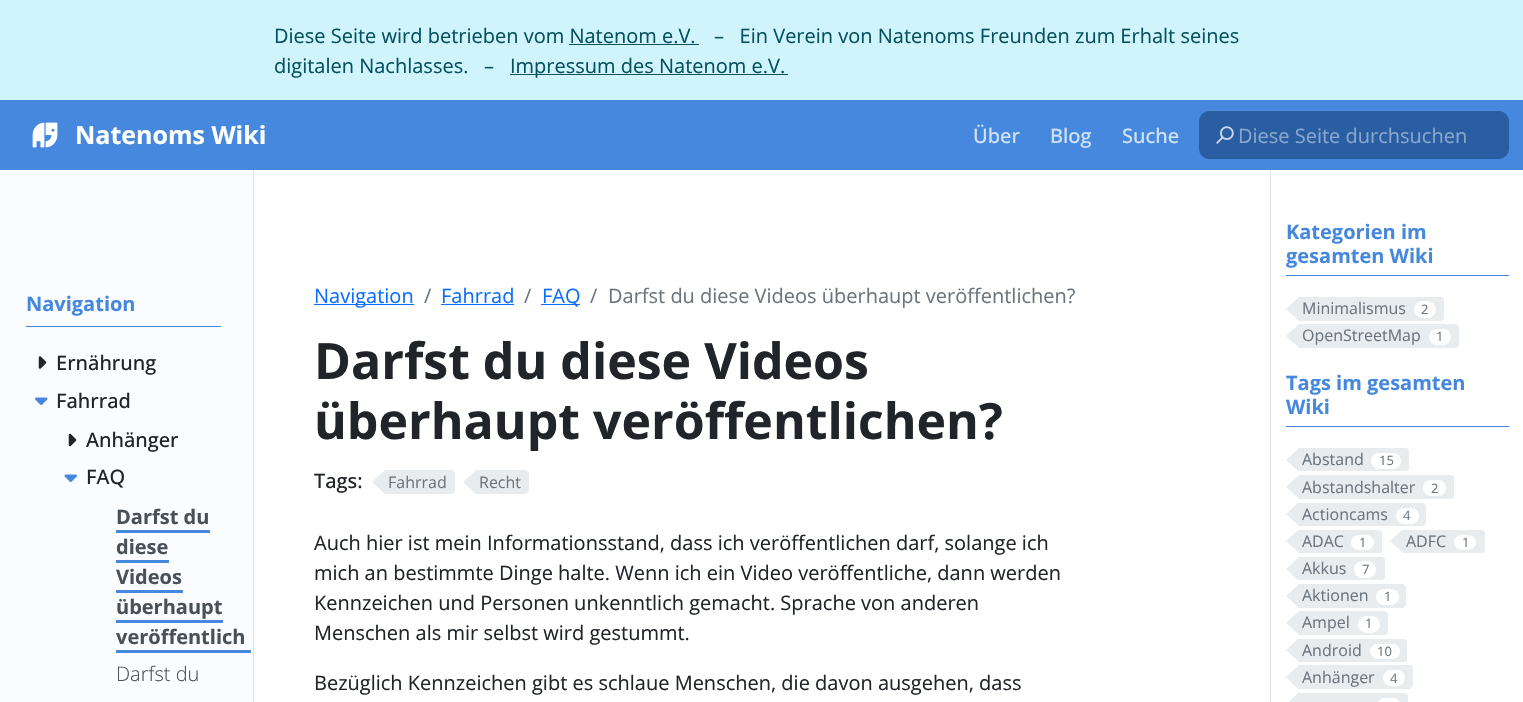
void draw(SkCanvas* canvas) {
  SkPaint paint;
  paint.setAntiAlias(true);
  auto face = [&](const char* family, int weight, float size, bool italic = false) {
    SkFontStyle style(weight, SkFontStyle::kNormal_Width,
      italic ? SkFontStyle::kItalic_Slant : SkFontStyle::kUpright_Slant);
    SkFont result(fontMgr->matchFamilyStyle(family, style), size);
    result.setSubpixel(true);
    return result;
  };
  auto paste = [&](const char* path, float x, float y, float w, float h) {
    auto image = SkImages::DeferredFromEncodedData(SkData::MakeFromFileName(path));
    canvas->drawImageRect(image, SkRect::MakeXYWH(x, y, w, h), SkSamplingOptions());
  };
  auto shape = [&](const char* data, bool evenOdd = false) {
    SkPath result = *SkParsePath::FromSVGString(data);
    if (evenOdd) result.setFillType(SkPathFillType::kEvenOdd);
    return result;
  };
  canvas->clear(0xffffffff);
  {
    const struct { float x, y, w, h; SkColor color; } items[] = {
      {0, 0, 1523, 100, 0xffcff4fc},
      {569, 44, 130, 1, 0xff055160},
      {510, 74, 278, 1, 0xff055160},
      {0, 100, 1523, 70, 0xff4588de},
    };
    for (auto [x, y, w, h, color] : items) {
      paint.setColor(color);
      canvas->drawRect(SkRect::MakeXYWH(x, y, w, h), paint);
    }
  }
  paste("img/1.png", 32, 122, 26, 26);
  paint.setColor(0xff2a5ea2);
  canvas->drawRoundRect(SkRect::MakeXYWH(1199.5f, 111.5f, 309, 47), 9.5f, 9.5f, paint);
  paint.setStroke(true);
  paint.setStrokeWidth(1);
  canvas->drawRoundRect(SkRect::MakeXYWH(1199.5f, 111.5f, 309, 47), 9.5f, 9.5f, paint);
  paste("img/2.png", 1216, 126, 18, 18);
  paint.setStroke(false);
  {
    const struct { float x, y, w, h; SkColor color; } items[] = {
      {0, 170, 253, 532, 0xfffafcff},
      {253, 170, 1, 532, 0xffdee2e6},
      {26, 326, 195, 1, 0xff4588de},
    };
    for (auto [x, y, w, h, color] : items) {
      paint.setColor(color);
      canvas->drawRect(SkRect::MakeXYWH(x, y, w, h), paint);
    }
  }
  paste("img/3.png", 38, 356, 9, 13);
  paste("img/4.png", 35, 397, 13, 8);
  paste("img/5.png", 68, 433, 9, 14);
  paste("img/6.png", 64, 474, 13, 8);
  {
    const struct { float x, y, w, h; SkColor color; } items[] = {
      {116, 530, 94, 3, 0xff4588de},
      {116, 560, 53, 3, 0xff4588de},
      {116, 590, 67, 3, 0xff4588de},
      {116, 620, 107, 3, 0xff4588de},
      {116, 650, 135, 3, 0xff4588de},
      {314, 304, 100, 1, 0xff0d6efd},
      {441, 304, 73, 1, 0xff0d6efd},
      {541, 304, 39, 1, 0xff0d6efd},
    };
    for (auto [x, y, w, h, color] : items) {
      paint.setColor(color);
      canvas->drawRect(SkRect::MakeXYWH(x, y, w, h), paint);
    }
  }
  paint.setColor(0xffe9ecef);
  canvas->drawPath(shape("M451 470H385L373 481V483L385 494H451C453 494 455 492 455 490V474C455 472 453 470 451 470Z"), paint);
  canvas->drawPath(shape("M525 470H476L464 481V483L476 494H525C527 494 529 492 529 490V474C529 472 527 470 525 470Z"), paint);
  paint.setColor(0xffdee2e6);
  canvas->drawRect(SkRect::MakeXYWH(1270, 170, 1, 532), paint);
  paint.setColor(0xff4588de);
  canvas->drawRect(SkRect::MakeXYWH(1286, 275, 223, 1), paint);
  paint.setColor(0xffe9ecef);
  canvas->drawPath(shape("M1442 297C1443 297 1444 299 1444 300V317C1444 319 1443 320 1441 321H1299L1286 309L1299 297Z"), paint);
  paint.setColor(0xffffffff);
  canvas->drawRoundRect(SkRect::MakeXYWH(1414, 301, 22, 17), 8.5f, 8.5f, paint);
  paint.setColor(0xffe9ecef);
  canvas->drawPath(shape("M1299 324H1455C1457 324 1459 326 1459 328V344C1459 346 1458 348 1456 348H1299L1286 336Z"), paint);
  paint.setColor(0xffffffff);
  canvas->drawRoundRect(SkRect::MakeXYWH(1429, 329, 22, 16), 8, 8, paint);
  paint.setColor(0xff4588de);
  canvas->drawRect(SkRect::MakeXYWH(1286, 426, 223, 1), paint);
  paint.setColor(0xffe9ecef);
  canvas->drawPath(shape("M1299 448H1406C1407 448 1409 449 1409 450V469C1409 470 1407 471 1406 471H1298L1286 460Z"), paint);
  paint.setColor(0xffffffff);
  canvas->drawRoundRect(SkRect::MakeXYWH(1371, 453, 30, 16), 8, 8, paint);
  paint.setColor(0xffe9ecef);
  canvas->drawPath(shape("M1454 497C1453 498 1452 499 1450 499H1299L1286 487L1299 475H1450C1452 475 1453 476 1454 477Z"), paint);
  paint.setColor(0xffffffff);
  canvas->drawRoundRect(SkRect::MakeXYWH(1423, 480, 23, 16), 8, 8, paint);
  paint.setColor(0xffe9ecef);
  canvas->drawPath(shape("M1298 503H1422C1424 503 1426 505 1426 507V522C1426 524 1424 526 1422 526H1299L1286 514Z"), paint);
  paint.setColor(0xffffffff);
  canvas->drawRoundRect(SkRect::MakeXYWH(1396, 508, 23, 16), 8, 8, paint);
  paint.setColor(0xffe9ecef);
  canvas->drawPath(shape("M1298 530H1379L1382 532V552L1381 553H1299L1286 541Z"), paint);
  paint.setColor(0xffffffff);
  canvas->drawRoundRect(SkRect::MakeXYWH(1351, 535, 23, 15), 7.5f, 7.5f, paint);
  paint.setColor(0xffe9ecef);
  canvas->drawPath(shape("M1402 530H1481C1483 530 1484 531 1485 532V552L1483 553H1403L1390 541Z"), paint);
  paint.setColor(0xffffffff);
  canvas->drawRoundRect(SkRect::MakeXYWH(1454, 535, 22, 15), 7.5f, 7.5f, paint);
  paint.setColor(0xffe9ecef);
  canvas->drawPath(shape("M1385 577C1384 579 1383 580 1381 580H1298L1286 569L1299 557H1383L1385 559Z"), paint);
  paint.setColor(0xffffffff);
  canvas->drawRoundRect(SkRect::MakeXYWH(1354, 561, 22, 17), 8.5f, 8.5f, paint);
  paint.setColor(0xffe9ecef);
  canvas->drawPath(shape("M1299 584H1402C1404 584 1406 586 1406 588V604C1406 606 1405 607 1403 608H1299L1286 596Z"), paint);
  paint.setColor(0xffffffff);
  canvas->drawRoundRect(SkRect::MakeXYWH(1376, 589, 23, 16), 8, 8, paint);
  paint.setColor(0xffe9ecef);
  canvas->drawPath(shape("M1299 611H1384C1386 611 1388 613 1388 615V631C1388 633 1387 635 1385 635H1299L1286 623Z"), paint);
  paint.setColor(0xffffffff);
  canvas->drawRoundRect(SkRect::MakeXYWH(1358, 616, 22, 17), 8.5f, 8.5f, paint);
  paint.setColor(0xffe9ecef);
  canvas->drawPath(shape("M1298 639H1404C1405 639 1407 640 1407 641V661L1406 662H1299L1286 650Z"), paint);
  paint.setColor(0xffffffff);
  canvas->drawRoundRect(SkRect::MakeXYWH(1370, 644, 30, 15), 7.5f, 7.5f, paint);
  paint.setColor(0xffe9ecef);
  canvas->drawPath(shape("M1411 665C1412 666 1413 667 1413 669V685C1413 687 1411 689 1409 689H1298L1286 677L1299 665Z"), paint);
  paint.setColor(0xffffffff);
  canvas->drawRoundRect(SkRect::MakeXYWH(1383, 670, 22, 16), 8, 8, paint);
  paint.setColor(0xffe9ecef);
  canvas->drawPath(shape("M1298 693H1406L1408 695V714L1406 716H1298L1286 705Z"), paint);
  paint.setColor(0xffffffff);
  canvas->drawRoundRect(SkRect::MakeXYWH(1378, 698, 22, 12), 8, 8, paint);
  auto f0 = face("Open Sans", 400, 20);
  paint.setColor(0xff055160);
  {
    const struct { const char* s; float x, y; } items[] = {
      {"Diese Seite wird betrieben vom Natenom e. V.", 274, 43},
      {"–   Ein Verein von Natenoms Freunden zum Erhalt seines", 714, 43},
      {"digitalen Nachlasses.   –", 274, 73},
      {"Impressum des Natenom e. V.", 510, 73},
    };
    for (auto [s, x, y] : items) {
      canvas->drawString(s, x, y, f0, paint);
    }
  }
  auto f1 = face("Open Sans", 700, 25);
  paint.setColor(0xffffffff);
  canvas->drawString("Natenoms Wiki", 75, 144, f1, paint);
  auto f2 = face("Open Sans", 500, 20);
  paint.setColor(0xffd1e1f7);
  {
    const struct { const char* s; float x, y; } items[] = {
      {"Über", 973, 143},
      {"Blog", 1050, 143},
      {"Suche", 1122, 143},
    };
    for (auto [s, x, y] : items) {
      canvas->drawString(s, x, y, f2, paint);
    }
  }
  paint.setColor(0xff8aa6cc);
  canvas->drawString("Diese Seite durchsuchen", 1238, 143, f0, paint);
  auto f3 = face("Open Sans", 700, 20);
  paint.setColor(0xff4588de);
  canvas->drawString("Navigation", 26, 311, f3, paint);
  paint.setColor(0xff212529);
  {
    const struct { const char* s; float x, y; } items[] = {
      {"Ernährung", 56, 370},
      {"Fahrrad", 56, 408},
      {"Anhänger", 86, 447},
      {"FAQ", 86, 484},
    };
    for (auto [s, x, y] : items) {
      canvas->drawString(s, x, y, f2, paint);
    }
  }
  paint.setColor(0xff495057);
  {
    const struct { const char* s; float x, y; } items[] = {
      {"Darfst du", 116, 524},
      {"diese", 116, 554},
      {"Videos", 116, 584},
      {"überhaupt", 116, 614},
      {"veröffentlich", 116, 644},
    };
    for (auto [s, x, y] : items) {
      canvas->drawString(s, x, y, f3, paint);
    }
  }
  auto f4 = face("Open Sans", 300, 20);
  canvas->drawString("Darfst du", 116, 681, f4, paint);
  paint.setColor(0xff0d6efd);
  canvas->drawString("Navigation", 314, 303, f0, paint);
  paint.setColor(0xff6c757d);
  canvas->drawString("/", 424, 303, f0, paint);
  paint.setColor(0xff0d6efd);
  canvas->drawString("Fahrrad", 441, 303, f0, paint);
  paint.setColor(0xff6c757d);
  canvas->drawString("/", 524, 303, f0, paint);
  paint.setColor(0xff0d6efd);
  canvas->drawString("FAQ", 542, 303, f0, paint);
  paint.setColor(0xff6c757d);
  canvas->drawString("/", 590, 303, f0, paint);
  canvas->drawString("Darfst du diese Videos überhaupt veröffentlichen?", 608, 303, f0, paint);
  auto f5 = face("Open Sans", 700, 50);
  paint.setColor(0xff212529);
  canvas->drawString("Darfst du diese Videos", 314, 379, f5, paint);
  canvas->drawString("überhaupt veröffentlichen?", 314, 439, f5, paint);
  canvas->drawString("Tags:", 314, 488, f2, paint);
  auto f6 = face("Open Sans", 400, 16);
  paint.setColor(0xff6c757d);
  canvas->drawString("Fahrrad", 388, 488, f6, paint);
  canvas->drawString("Recht", 479, 488, f6, paint);
  paint.setColor(0xff212529);
  {
    const struct { const char* s; float x, y; } items[] = {
      {"Auch hier ist mein Informationsstand, dass ich veröffentlichen darf, solange ich", 314, 550},
      {"mich an bestimmte Dinge halte. Wenn ich ein Video veröffentliche, dann werden", 314, 580},
      {"Kennzeichen und Personen unkenntlich gemacht. Sprache von anderen", 314, 610},
      {"Menschen als mir selbst wird gestummt.", 314, 640},
      {"Bezüglich Kennzeichen gibt es schlaue Menschen, die davon ausgehen, dass", 314, 690},
    };
    for (auto [s, x, y] : items) {
      canvas->drawString(s, x, y, f0, paint);
    }
  }
  paint.setColor(0xff4588de);
  canvas->drawString("Kategorien im", 1286, 239, f3, paint);
  canvas->drawString("gesamten Wiki", 1286, 263, f3, paint);
  paint.setColor(0xff6c757d);
  canvas->drawString("Minimalismus", 1302, 314, f6, paint);
  auto f7 = face("Open Sans", 400, 13);
  canvas->drawString("2", 1421, 314, f7, paint);
  canvas->drawString("OpenStreetMap", 1302, 341, f6, paint);
  canvas->drawString("1", 1436, 341, f7, paint);
  paint.setColor(0xff4588de);
  canvas->drawString("Tags im gesamten", 1286, 390, f3, paint);
  canvas->drawString("Wiki", 1286, 414, f3, paint);
  paint.setColor(0xff6c757d);
  canvas->drawString("Abstand", 1302, 465, f6, paint);
  canvas->drawString("15", 1379, 465, f7, paint);
  canvas->drawString("Abstandshalter", 1302, 493, f6, paint);
  canvas->drawString("2", 1431, 493, f7, paint);
  canvas->drawString("Actioncams", 1302, 520, f6, paint);
  canvas->drawString("4", 1403, 520, f7, paint);
  canvas->drawString("ADAC", 1302, 547, f6, paint);
  canvas->drawString("1", 1359, 547, f7, paint);
  canvas->drawString("ADFC", 1406, 547, f6, paint);
  canvas->drawString("1", 1462, 547, f7, paint);
  canvas->drawString("Akkus", 1302, 574, f6, paint);
  canvas->drawString("7", 1362, 574, f7, paint);
  canvas->drawString("Aktionen", 1302, 601, f6, paint);
  canvas->drawString("1", 1384, 601, f7, paint);
  canvas->drawString("Ampel", 1302, 628, f6, paint);
  canvas->drawString("1", 1365, 628, f7, paint);
  canvas->drawString("Android", 1302, 656, f6, paint);
  canvas->drawString("10", 1377, 656, f7, paint);
  canvas->drawString("Anhänger", 1302, 683, f6, paint);
  canvas->drawString("4", 1390, 683, f7, paint);
}
